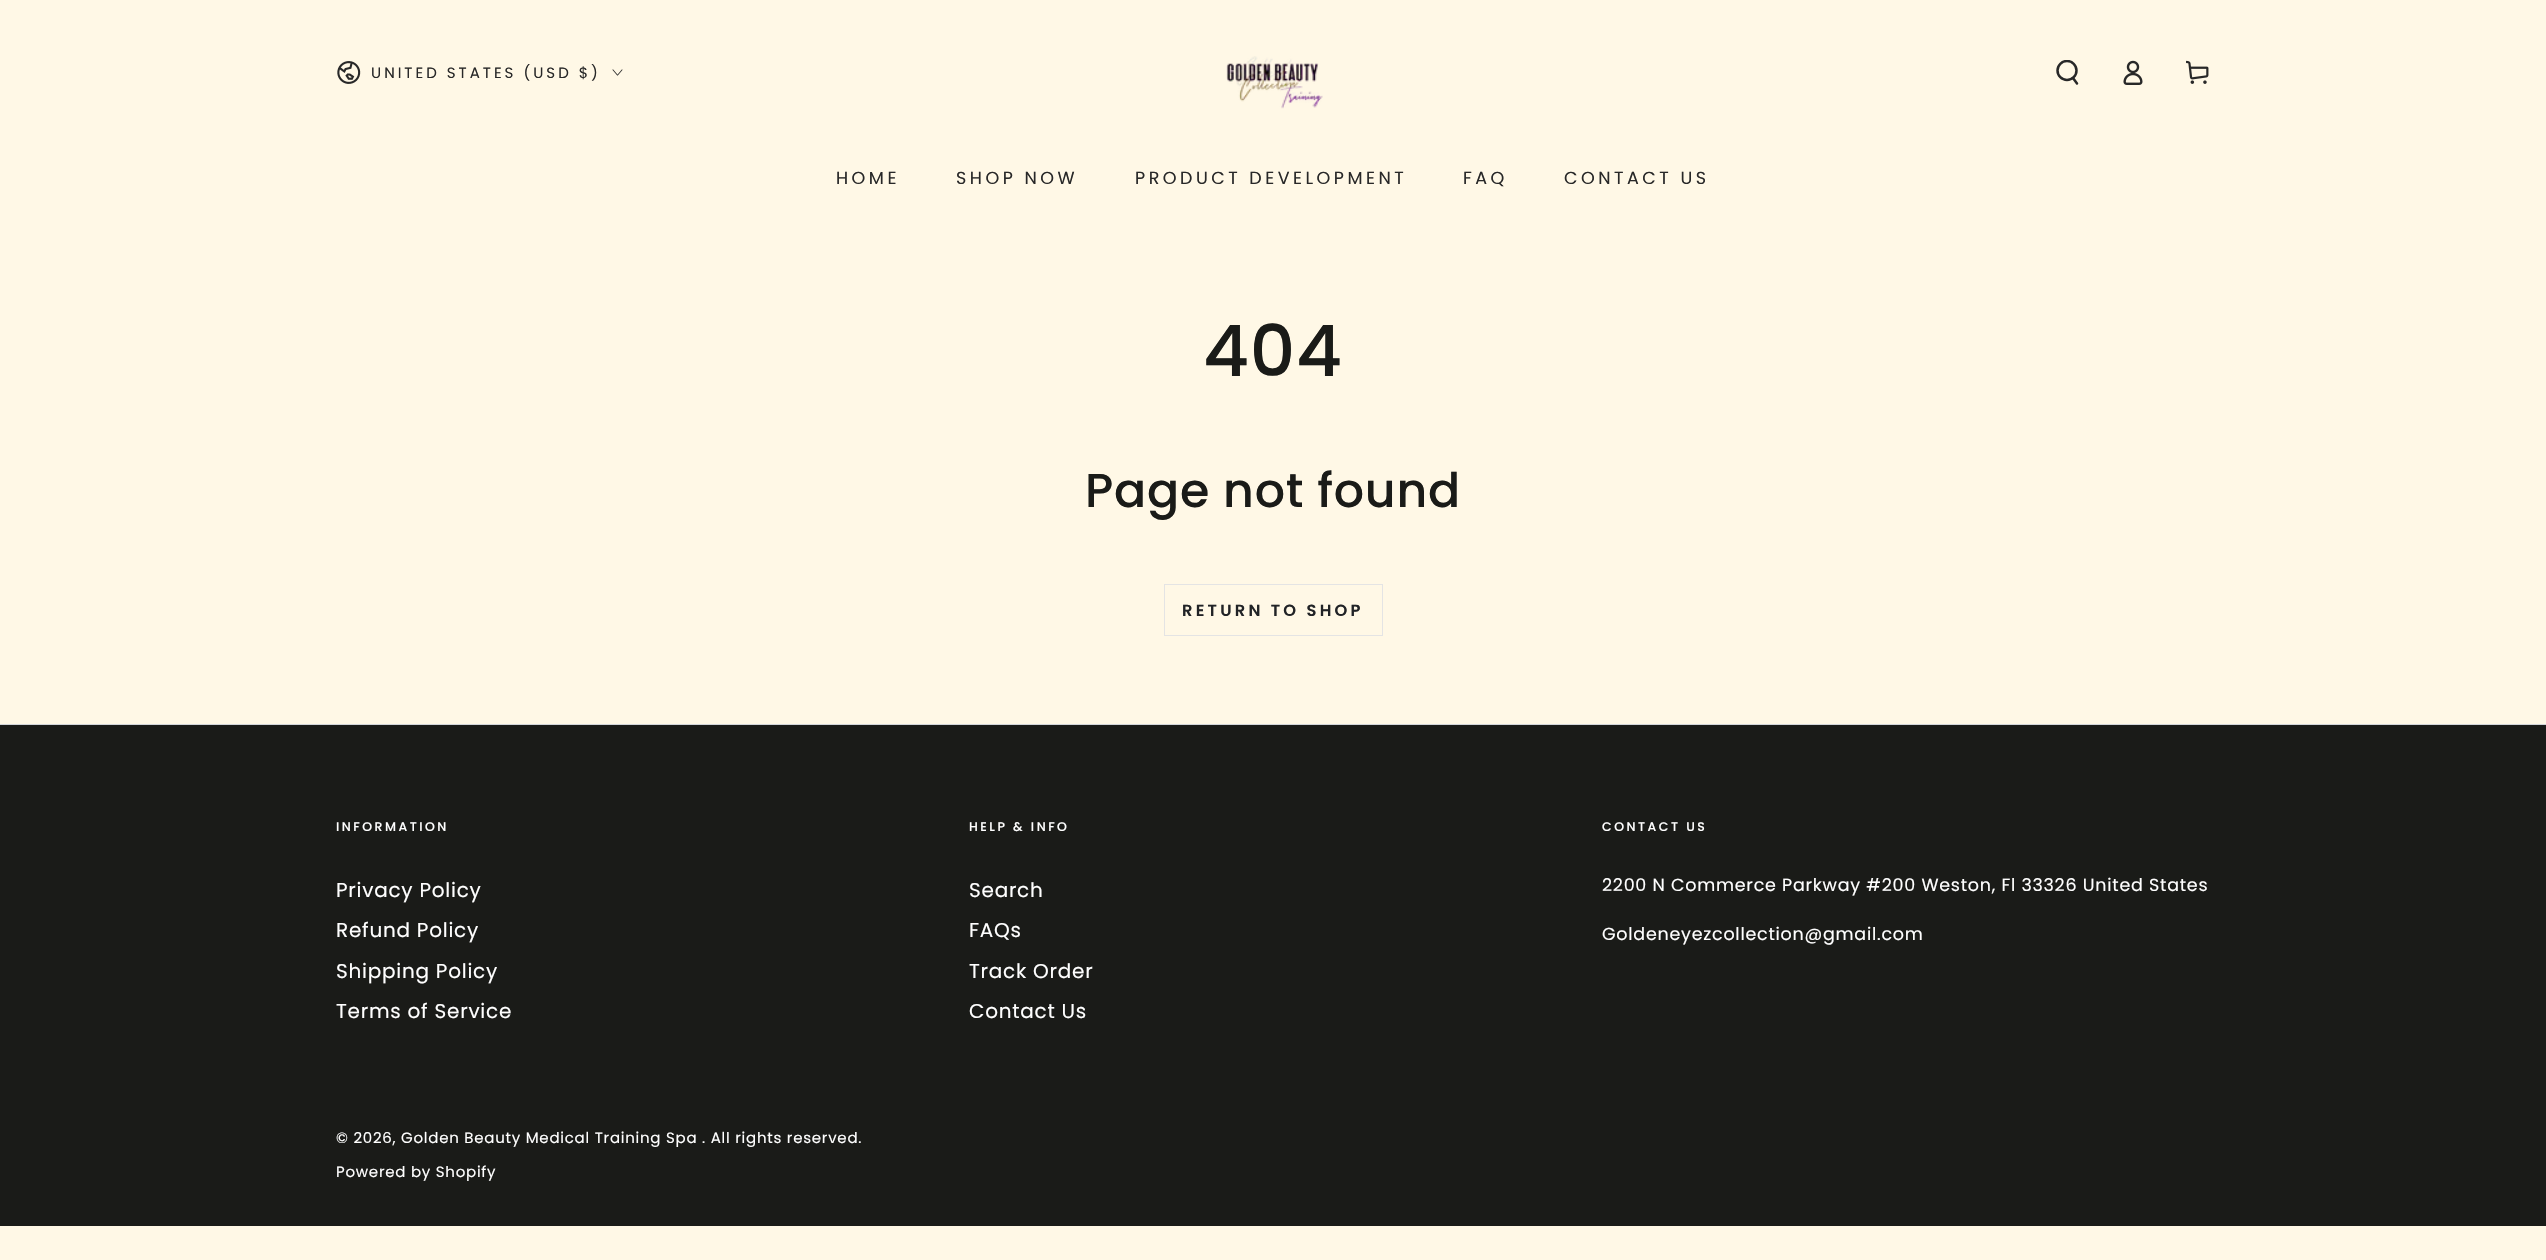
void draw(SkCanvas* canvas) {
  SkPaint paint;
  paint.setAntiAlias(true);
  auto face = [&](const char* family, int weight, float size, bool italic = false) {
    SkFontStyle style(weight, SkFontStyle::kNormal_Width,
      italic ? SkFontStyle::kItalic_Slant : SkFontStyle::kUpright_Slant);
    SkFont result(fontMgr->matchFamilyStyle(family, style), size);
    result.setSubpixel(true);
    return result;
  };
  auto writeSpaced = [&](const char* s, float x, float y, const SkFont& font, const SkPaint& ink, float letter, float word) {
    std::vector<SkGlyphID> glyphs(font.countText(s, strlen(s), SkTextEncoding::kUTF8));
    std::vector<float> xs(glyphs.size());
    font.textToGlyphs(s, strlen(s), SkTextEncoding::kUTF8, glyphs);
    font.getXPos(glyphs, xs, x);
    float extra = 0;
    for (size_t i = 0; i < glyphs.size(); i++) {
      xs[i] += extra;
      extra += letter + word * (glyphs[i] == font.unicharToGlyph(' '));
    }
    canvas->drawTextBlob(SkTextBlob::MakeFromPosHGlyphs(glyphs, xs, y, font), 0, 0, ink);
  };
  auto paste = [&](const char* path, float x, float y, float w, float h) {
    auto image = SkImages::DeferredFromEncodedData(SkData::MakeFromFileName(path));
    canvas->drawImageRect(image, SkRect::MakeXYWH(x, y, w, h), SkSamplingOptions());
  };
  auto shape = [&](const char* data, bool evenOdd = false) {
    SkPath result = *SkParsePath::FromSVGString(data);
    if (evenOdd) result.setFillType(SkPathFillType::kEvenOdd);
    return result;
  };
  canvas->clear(0xfffff8e6);
  paste("img/1.png", 337, 61, 24, 23);
  paste("img/2.png", 612, 69, 11, 7);
  paste("img/3.png", 1226, 56, 97, 53);
  canvas->save();
  canvas->clipRect(SkRect::MakeXYWH(2055, 60, 25, 25));
  paint.setStroke(true);
  paint.setStrokeWidth(2.5f);
  paint.setColor(0xff282828);
  canvas->drawCircle(2067, 70.5f, 9.5f, paint);
  canvas->restore();
  paint.setStrokeCap(SkPaint::kRound_Cap);
  canvas->drawPath(shape("M2073 78L2077 83.5"), paint);
  paste("img/4.png", 2123, 60, 20, 25);
  paste("img/5.png", 2186, 60, 23, 24);
  paint.setStrokeWidth(1);
  paint.setStrokeCap(SkPaint::kButt_Cap);
  paint.setColor(0xffe4e4e4);
  canvas->drawRect(SkRect::MakeXYWH(1164.5f, 584.5f, 218, 51), paint);
  paint.setStroke(false);
  paint.setColor(0xff1a1b18);
  canvas->drawRect(SkRect::MakeXYWH(0, 725, 2546, 501), paint);
  paint.setColor(0xffd2d5d9);
  canvas->drawRect(SkRect::MakeXYWH(0, 724, 2546, 1), paint);
  auto f0 = face("Poppins", 400, 15);
  paint.setColor(0xff282828);
  writeSpaced("UNITED STATES (USD $)", 371, 78, f0, paint, 3, 0);
  auto f1 = face("Poppins", 400, 17.5f);
  {
    const struct { const char* s; float x, y; } items[] = {
      {"HOME", 836, 184},
      {"SHOP NOW", 956, 184},
      {"PRODUCT DEVELOPMENT", 1135, 184},
      {"FAQ", 1463, 184},
      {"CONTACT US", 1564, 184},
    };
    for (auto [s, x, y] : items) {
      writeSpaced(s, x, y, f1, paint, 3.5f, 0);
    }
  }
  auto f2 = face("Poppins", 500, 71);
  paint.setColor(0xff1a1b18);
  writeSpaced("404", 1203, 376, f2, paint, 0.75f, 0);
  auto f3 = face("Poppins", 500, 47.5f);
  writeSpaced("Page not found", 1085, 507, f3, paint, 0.75f, 0);
  auto f4 = face("Poppins", 600, 16.25f);
  paint.setColor(0xff212326);
  writeSpaced("RETURN TO SHOP", 1182, 616, f4, paint, 3.25f, 0);
  auto f5 = face("Poppins", 500, 12.5f);
  paint.setColor(0xffffffff);
  writeSpaced("INFORMATION", 336, 831, f5, paint, 2.5f, 0);
  auto f6 = face("Poppins", 400, 20);
  {
    const struct { const char* s; float x, y; } items[] = {
      {"Privacy Policy", 336, 897},
      {"Refund Policy", 336, 937},
      {"Shipping Policy", 336, 978},
      {"Terms of Service", 336, 1018},
    };
    for (auto [s, x, y] : items) {
      writeSpaced(s, x, y, f6, paint, 0.75f, 0);
    }
  }
  writeSpaced("HELP & INFO", 969, 831, f5, paint, 2.5f, 0);
  {
    const struct { const char* s; float x, y; } items[] = {
      {"Search", 969, 897},
      {"FAQs", 969, 937},
      {"Track Order", 969, 978},
      {"Contact Us", 969, 1018},
    };
    for (auto [s, x, y] : items) {
      writeSpaced(s, x, y, f6, paint, 0.75f, 0);
    }
  }
  writeSpaced("CONTACT US", 1602, 831, f5, paint, 2.5f, 0);
  writeSpaced("2200 N Commerce Parkway #200 Weston, Fl 33326 United States", 1602, 891, f1, paint, 0.75f, 0);
  writeSpaced("Goldeneyezcollection@gmail.com", 1602, 940, f1, paint, 0.75f, 0);
  writeSpaced("© 2026, Golden Beauty Medical Training Spa . All rights reserved.", 336, 1143, f0, paint, 0.75f, 0);
  writeSpaced("Powered by Shopify", 336, 1177, f0, paint, 0.75f, 0);
}
